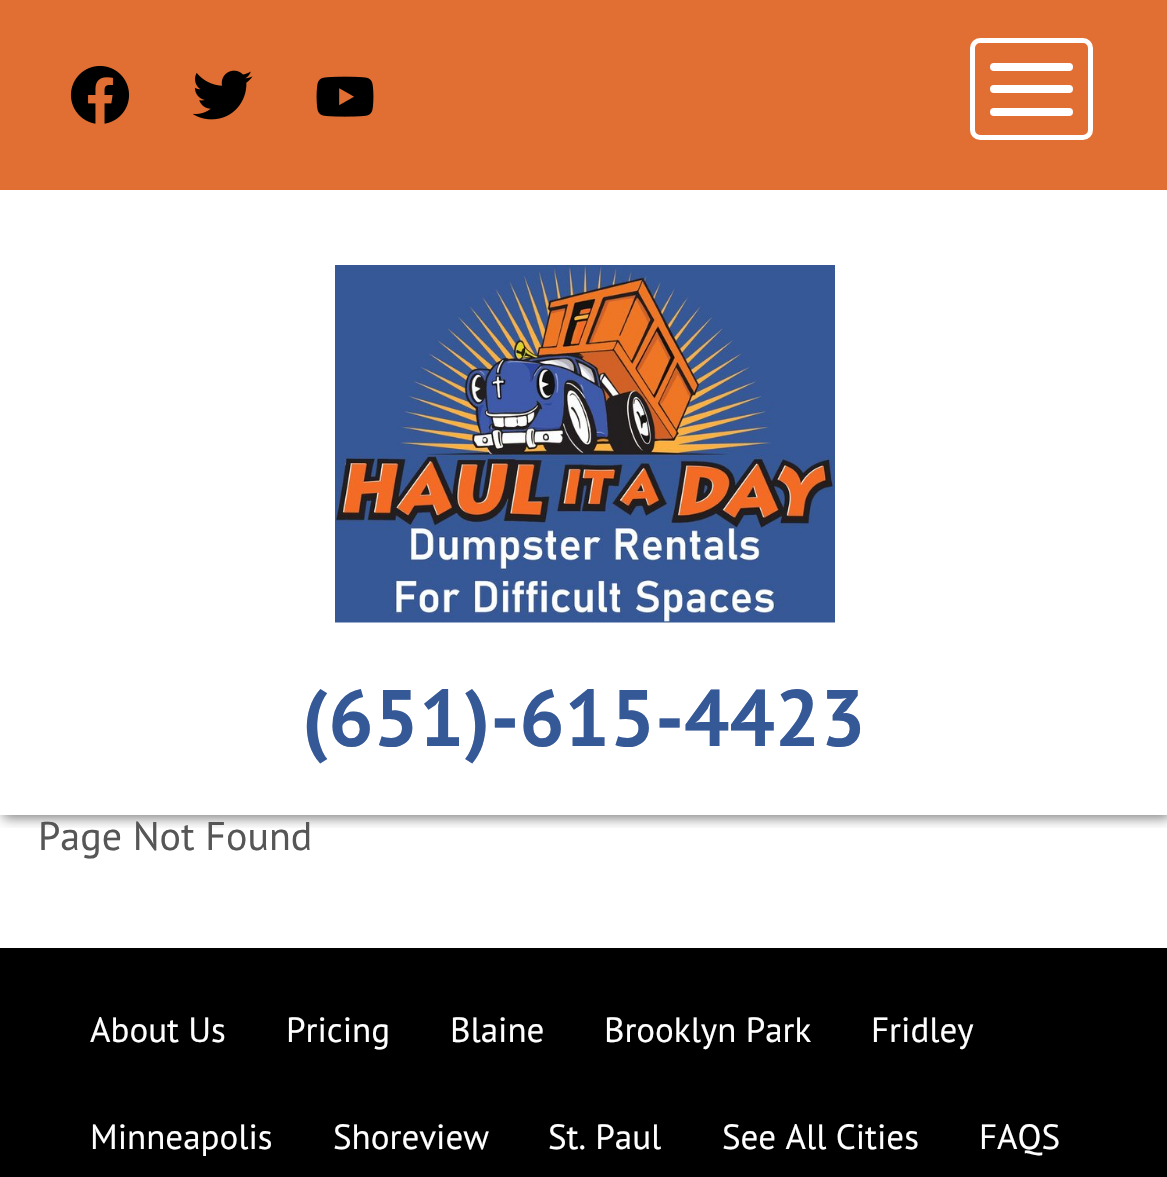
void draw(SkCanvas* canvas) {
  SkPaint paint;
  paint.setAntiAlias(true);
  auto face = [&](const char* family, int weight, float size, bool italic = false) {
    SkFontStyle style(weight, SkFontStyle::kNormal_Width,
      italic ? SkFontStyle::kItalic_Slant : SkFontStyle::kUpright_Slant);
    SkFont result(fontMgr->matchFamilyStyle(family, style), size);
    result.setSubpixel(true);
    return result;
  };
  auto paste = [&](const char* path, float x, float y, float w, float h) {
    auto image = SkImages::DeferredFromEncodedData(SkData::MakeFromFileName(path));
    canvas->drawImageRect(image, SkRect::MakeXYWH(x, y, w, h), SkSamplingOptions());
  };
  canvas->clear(0xffffffff);
  canvas->save();
  canvas->clipRect(SkRect::MakeXYWH(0, 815, 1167, 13));
  paint.setColor(0x80000000);
  paint.setMaskFilter(SkMaskFilter::MakeBlur(kNormal_SkBlurStyle, 6));
  canvas->drawRect(SkRect::MakeXYWH(3, 193, 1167, 625), paint);
  paint.setMaskFilter(nullptr);
  canvas->restore();
  paint.setColor(0xffe16f34);
  canvas->drawRect(SkRect::MakeXYWH(0, 0, 1167, 190), paint);
  paste("img/1.png", 70, 65, 60, 59);
  paste("img/2.png", 193, 70, 60, 50);
  paste("img/3.png", 316, 76, 58, 41);
  paint.setStroke(true);
  paint.setStrokeWidth(5);
  paint.setColor(0xffffffff);
  canvas->drawRoundRect(SkRect::MakeXYWH(972.5f, 40.5f, 118, 97), 7.5f, 7.5f, paint);
  paint.setStroke(false);
  canvas->drawRoundRect(SkRect::MakeXYWH(990, 63, 83, 8), 4, 4, paint);
  canvas->drawRoundRect(SkRect::MakeXYWH(990, 85, 83, 8), 4, 4, paint);
  canvas->drawRoundRect(SkRect::MakeXYWH(990, 108, 83, 8), 4, 4, paint);
  paste("img/4.png", 335, 265, 500, 358);
  paint.setColor(0xff000000);
  canvas->drawRect(SkRect::MakeXYWH(0, 948, 1167, 229), paint);
  auto f0 = face("PT Sans", 700, 80);
  paint.setColor(0xff355897);
  canvas->drawString("(651)-615-4423", 302, 746, f0, paint);
  auto f1 = face("PT Sans", 400, 40);
  paint.setColor(0xff565656);
  canvas->drawString("Page Not Found", 38, 850, f1, paint);
  auto f2 = face("PT Sans", 400, 35);
  paint.setColor(0xffffffff);
  {
    const struct { const char* s; float x, y; } items[] = {
      {"About Us", 90, 1042},
      {"Pricing", 286, 1042},
      {"Blaine", 450, 1042},
      {"Brooklyn Park", 604, 1042},
      {"Fridley", 871, 1042},
      {"Minneapolis", 90, 1149},
      {"Shoreview", 333, 1149},
      {"St. Paul", 548, 1149},
      {"See All Cities", 722, 1149},
      {"FAQS", 979, 1149},
    };
    for (auto [s, x, y] : items) {
      canvas->drawString(s, x, y, f2, paint);
    }
  }
}
